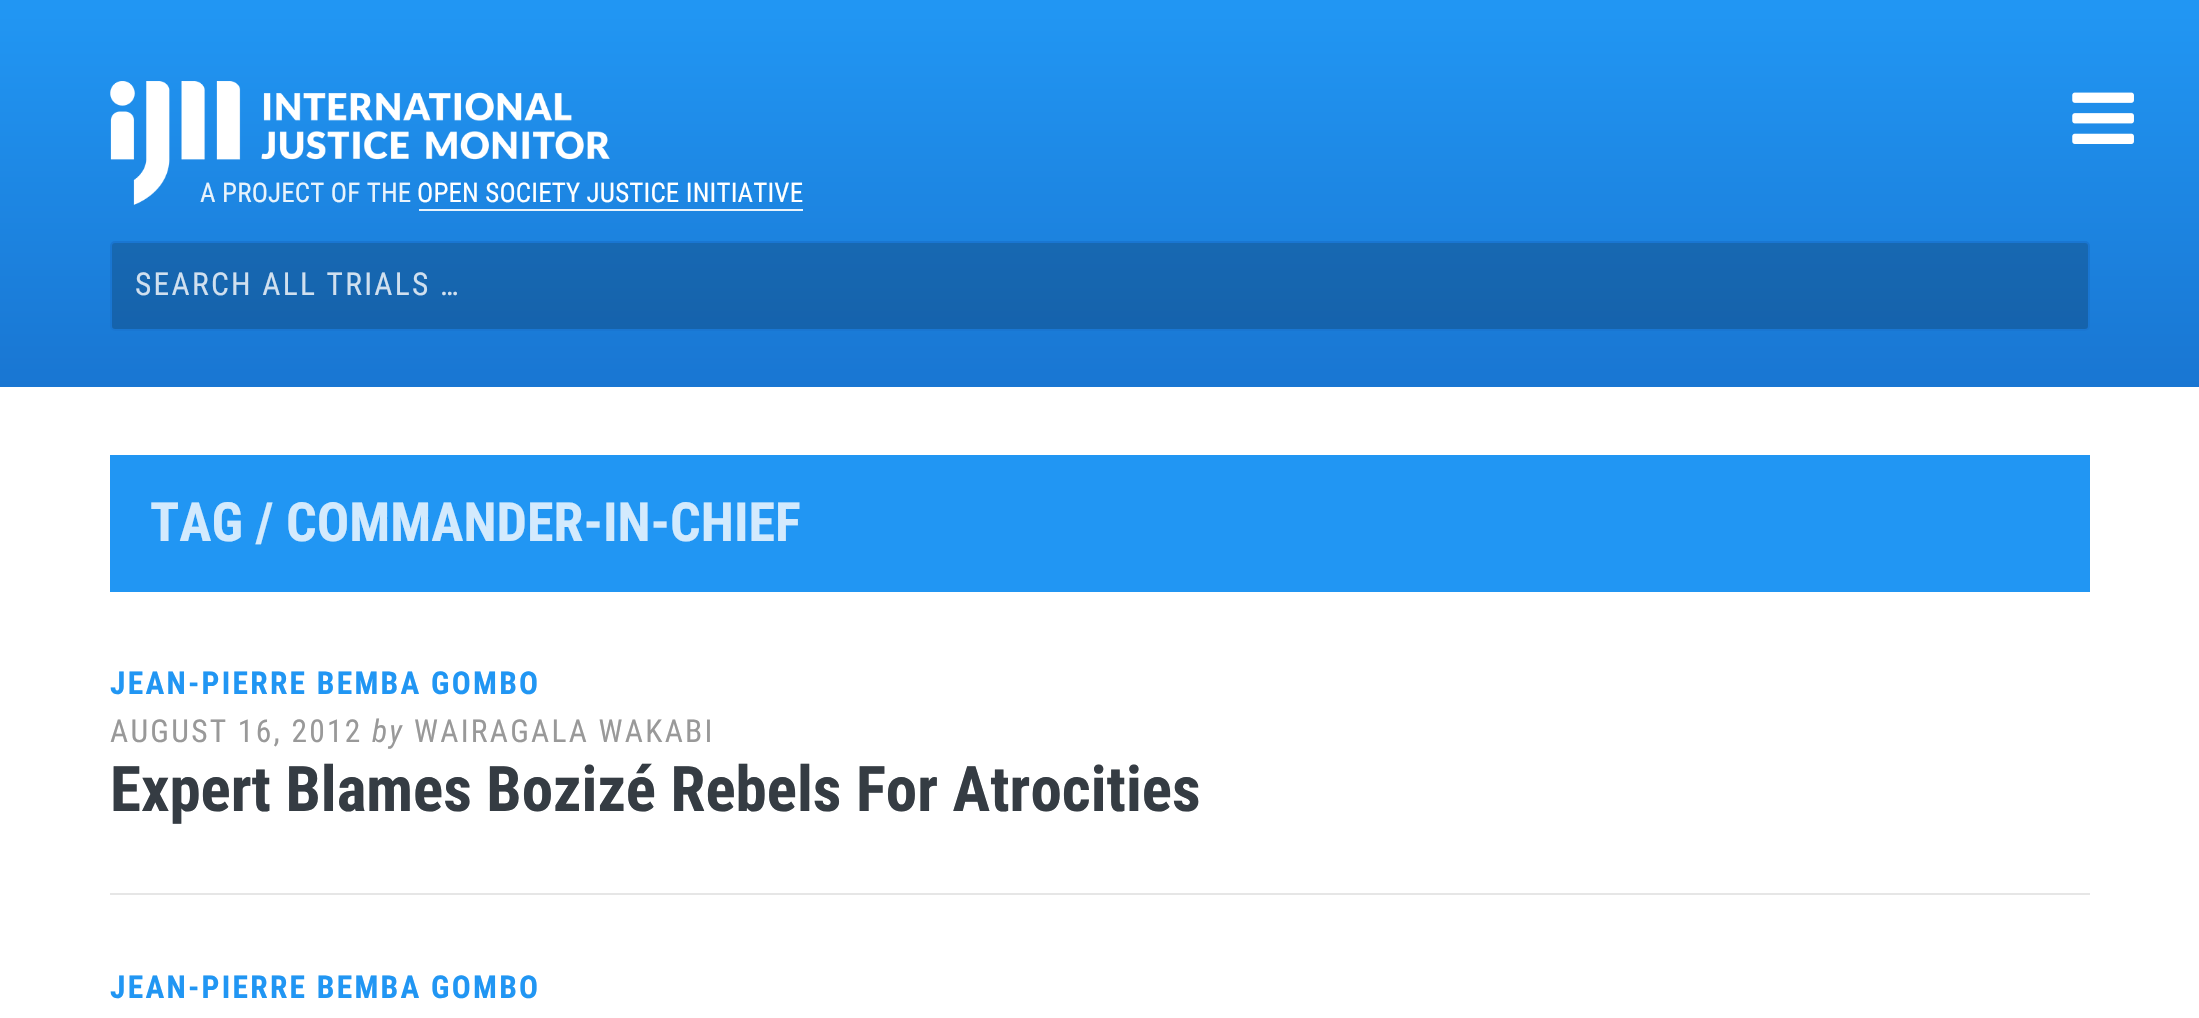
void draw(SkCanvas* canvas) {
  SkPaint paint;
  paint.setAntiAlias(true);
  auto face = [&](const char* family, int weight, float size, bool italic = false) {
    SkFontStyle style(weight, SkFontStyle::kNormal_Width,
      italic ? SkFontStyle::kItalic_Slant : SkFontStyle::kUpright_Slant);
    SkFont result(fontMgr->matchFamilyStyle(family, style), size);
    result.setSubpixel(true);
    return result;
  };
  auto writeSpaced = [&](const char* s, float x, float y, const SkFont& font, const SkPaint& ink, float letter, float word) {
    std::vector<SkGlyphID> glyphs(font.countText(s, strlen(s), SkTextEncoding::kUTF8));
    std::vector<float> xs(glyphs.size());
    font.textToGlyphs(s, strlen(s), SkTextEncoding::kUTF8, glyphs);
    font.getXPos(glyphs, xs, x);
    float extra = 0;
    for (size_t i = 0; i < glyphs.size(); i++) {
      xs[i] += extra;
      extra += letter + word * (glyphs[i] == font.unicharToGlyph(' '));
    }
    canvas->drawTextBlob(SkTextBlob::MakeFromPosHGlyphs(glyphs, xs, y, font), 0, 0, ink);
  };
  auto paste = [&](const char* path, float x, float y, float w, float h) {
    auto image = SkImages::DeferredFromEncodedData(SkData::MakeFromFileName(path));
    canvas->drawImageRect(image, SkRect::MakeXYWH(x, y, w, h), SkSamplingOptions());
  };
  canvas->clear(0xffffffff);
  {
    const SkColor colors[] = {0xff2196f3, 0xff1976d2};
    const float stops[] = {0, 1};
    const SkPoint ends[] = {{1100, 13}, {1100, 387}};
    paint.setShader(SkGradientShader::MakeLinear(ends, colors, stops, 2, SkTileMode::kClamp));
    paint.setAlpha(255);
  }
  canvas->drawRect(SkRect::MakeXYWH(0, 14, 2199, 373), paint);
  paint.setShader(nullptr);
  paint.setColor(0xff2196f3);
  canvas->drawRect(SkRect::MakeXYWH(0, 0, 2199, 14), paint);
  paste("img/1.png", 2072, 92, 62, 52);
  paste("img/2.png", 110, 81, 500, 124);
  paint.setColor(0xffe8f3fc);
  canvas->drawRect(SkRect::MakeXYWH(419, 209, 384, 2), paint);
  paint.setColor(0x33000000);
  canvas->drawRoundRect(SkRect::MakeXYWH(111, 242, 1978, 88), 4, 4, paint);
  paint.setStroke(true);
  paint.setStrokeWidth(2);
  paint.setColor(0xff1976d2);
  canvas->drawRoundRect(SkRect::MakeXYWH(111, 242, 1978, 88), 4, 4, paint);
  paint.setStroke(false);
  paint.setColor(0xff2196f3);
  canvas->drawRect(SkRect::MakeXYWH(110, 455, 1980, 137), paint);
  paint.setColor(0xffe6e6e6);
  canvas->drawRect(SkRect::MakeXYWH(110, 893, 1980, 2), paint);
  auto f0 = face("Roboto Condensed", 400, 27);
  paint.setColor(0xffe8f3fc);
  writeSpaced("A PROJECT OF THE", 200, 202, f0, paint, 0.15f, 0);
  paint.setColor(0xffffffff);
  writeSpaced("OPEN SOCIETY JUSTICE INITIATIVE", 417, 202, f0, paint, 0.15f, 0);
  auto f1 = face("Roboto Condensed", 400, 31.5f);
  paint.setColor(0xffd0e0ef);
  writeSpaced("SEARCH ALL TRIALS …", 135, 295, f1, paint, 2.25f, 0);
  auto f2 = face("Roboto Condensed", 700, 54);
  paint.setColor(0xffd3eafd);
  canvas->drawString("TAG / COMMANDER-IN-CHIEF", 150, 541, f2, paint);
  auto f3 = face("Roboto Condensed", 700, 31.5f);
  paint.setColor(0xff2196f3);
  writeSpaced("JEAN-PIERRE BEMBA GOMBO", 110, 694, f3, paint, 2.25f, 0);
  paint.setColor(0xff999999);
  writeSpaced("AUGUST 16, 2012", 110, 742, f1, paint, 2.25f, 0);
  auto f4 = face("Roboto Condensed", 400, 31.5f, true);
  writeSpaced("by", 372, 742, f4, paint, 2.25f, 0);
  writeSpaced("WAIRAGALA WAKABI", 414, 742, f1, paint, 2.25f, 0);
  auto f5 = face("Roboto Condensed", 700, 63);
  paint.setColor(0xff353c43);
  canvas->drawString("Expert Blames Bozizé Rebels For Atrocities", 110, 811, f5, paint);
  paint.setColor(0xff2196f3);
  writeSpaced("JEAN-PIERRE BEMBA GOMBO", 110, 998, f3, paint, 2.25f, 0);
}
